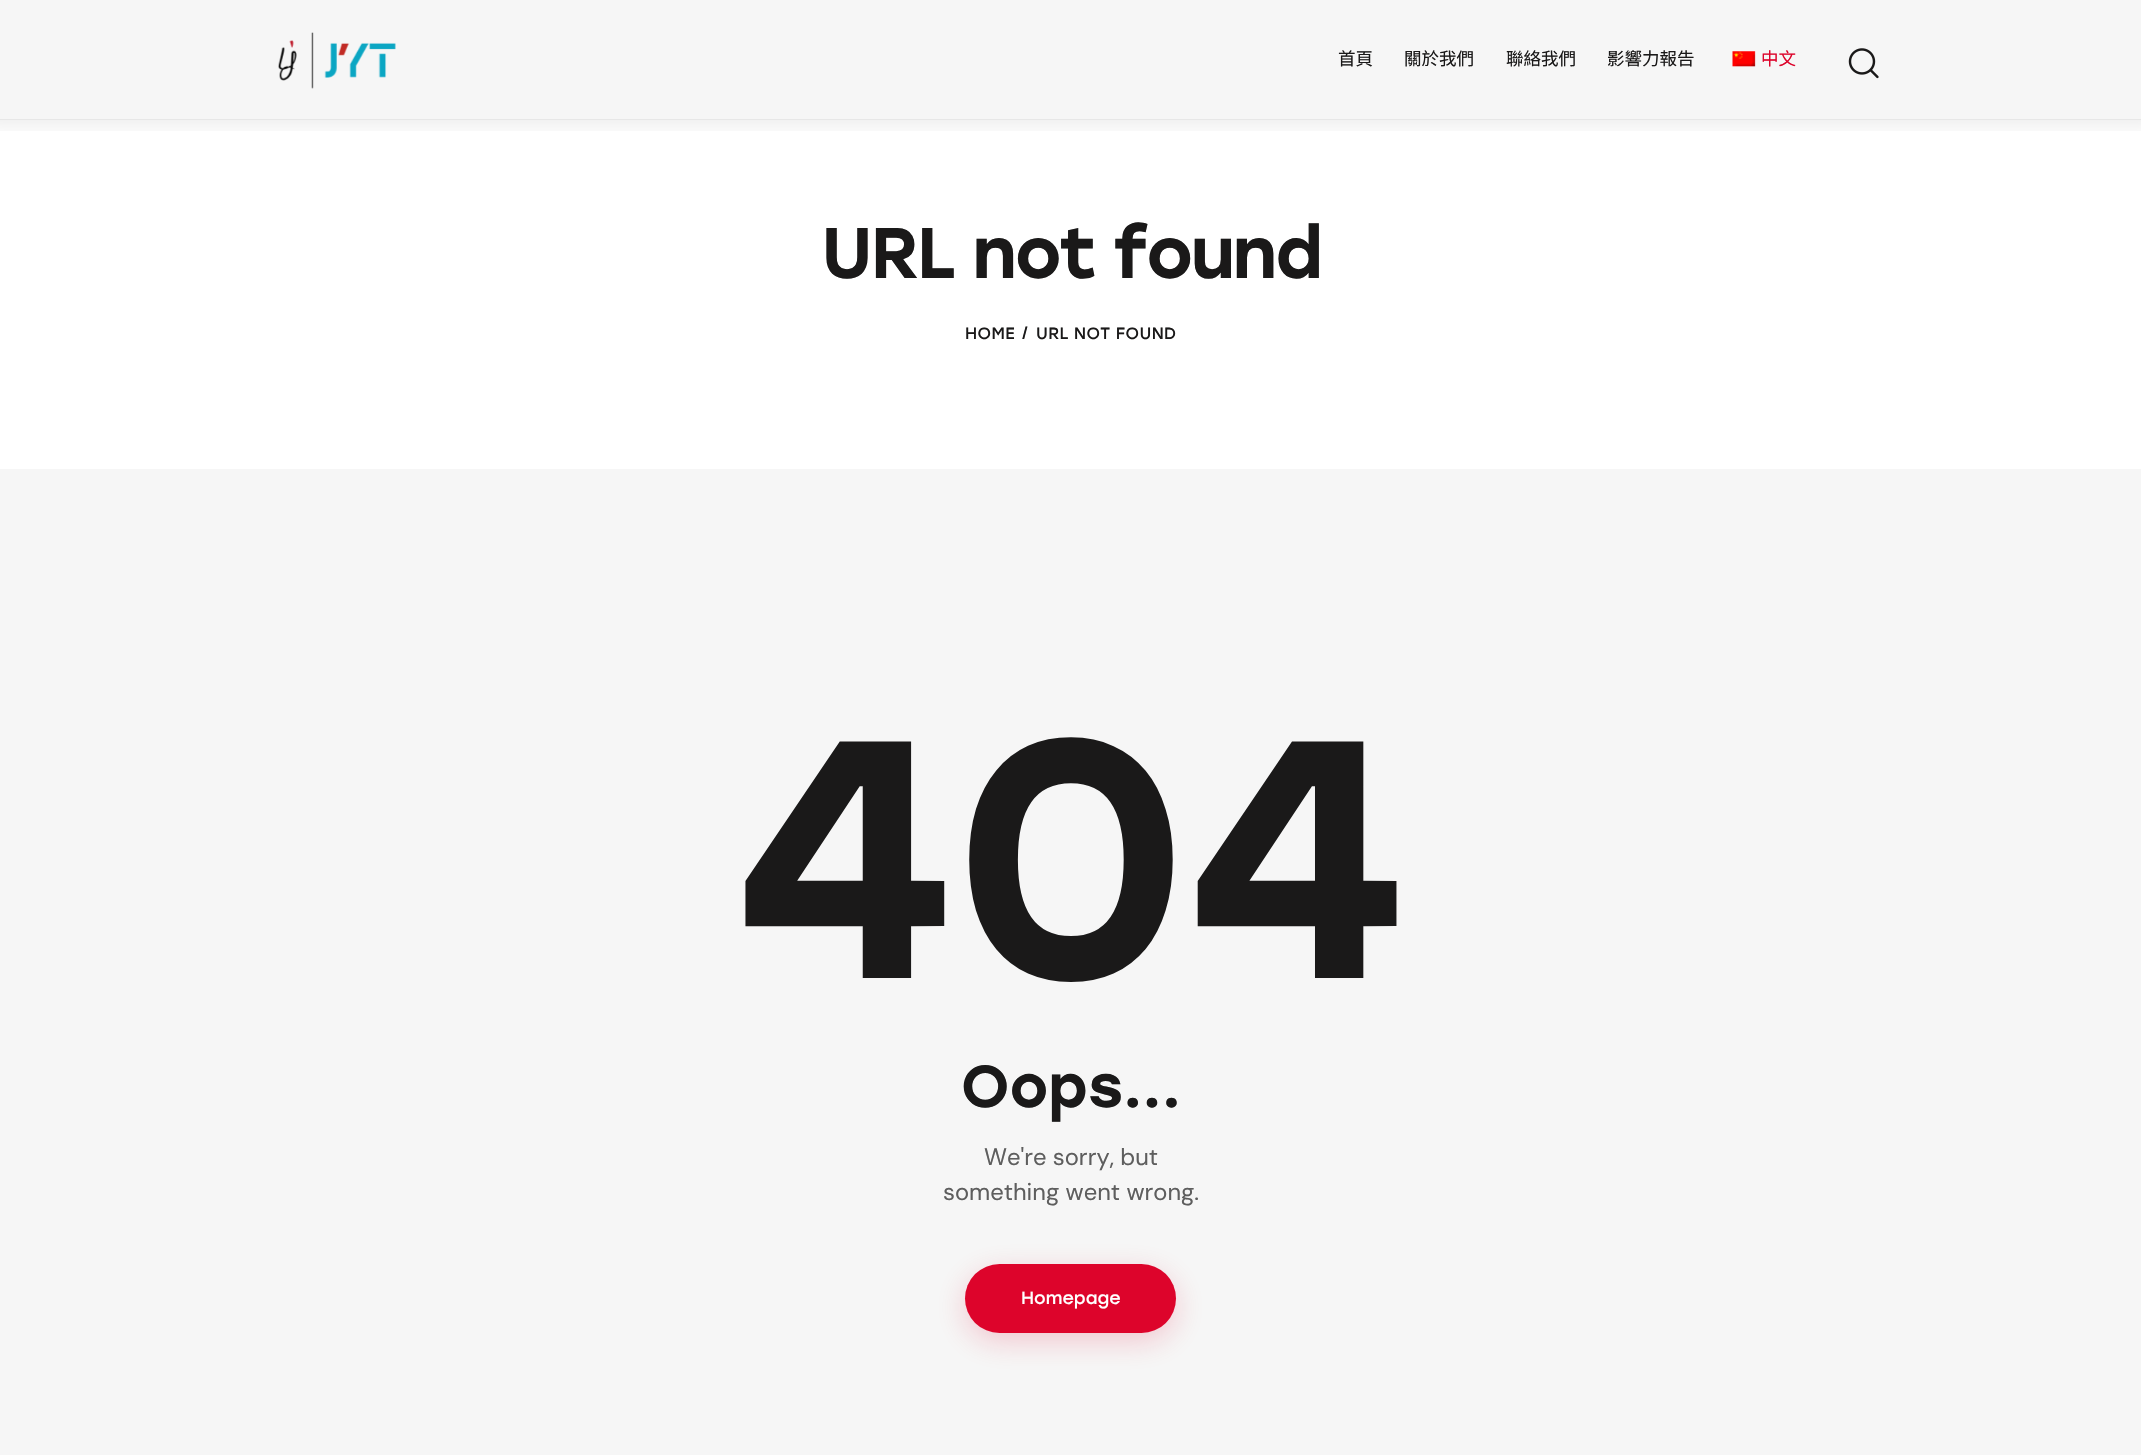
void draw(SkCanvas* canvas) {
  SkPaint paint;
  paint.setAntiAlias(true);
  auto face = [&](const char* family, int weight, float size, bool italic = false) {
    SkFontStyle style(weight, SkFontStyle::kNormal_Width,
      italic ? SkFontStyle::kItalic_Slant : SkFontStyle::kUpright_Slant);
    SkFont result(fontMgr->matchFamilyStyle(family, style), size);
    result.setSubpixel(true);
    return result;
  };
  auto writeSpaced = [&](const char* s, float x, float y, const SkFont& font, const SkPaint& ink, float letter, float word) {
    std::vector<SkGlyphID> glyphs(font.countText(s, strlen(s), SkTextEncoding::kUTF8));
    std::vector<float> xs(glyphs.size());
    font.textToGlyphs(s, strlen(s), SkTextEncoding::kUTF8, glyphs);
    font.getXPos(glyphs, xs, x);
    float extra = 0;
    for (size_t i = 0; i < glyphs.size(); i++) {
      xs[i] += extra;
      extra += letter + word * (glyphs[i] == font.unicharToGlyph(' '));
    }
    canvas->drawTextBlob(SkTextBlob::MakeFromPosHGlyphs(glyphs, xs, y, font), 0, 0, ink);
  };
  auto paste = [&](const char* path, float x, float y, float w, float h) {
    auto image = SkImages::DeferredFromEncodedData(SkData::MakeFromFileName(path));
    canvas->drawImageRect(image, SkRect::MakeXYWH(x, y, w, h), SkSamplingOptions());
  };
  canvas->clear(0xfff6f6f6);
  paint.setColor(0xffffffff);
  canvas->drawRect(SkRect::MakeXYWH(0, 120, 2141, 349), paint);
  canvas->save();
  canvas->clipRect(SkRect::MakeXYWH(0, 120, 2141, 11));
  paint.setColor(0x14000000);
  paint.setMaskFilter(SkMaskFilter::MakeBlur(kNormal_SkBlurStyle, 10));
  canvas->drawRect(SkRect::MakeXYWH(-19, 4, 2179, 120), paint);
  paint.setMaskFilter(nullptr);
  canvas->restore();
  paint.setColor(0xffe7e7e7);
  canvas->drawRect(SkRect::MakeXYWH(0, 119, 2141, 1), paint);
  paste("img/1.png", 278, 32, 118, 57);
  paste("img/2.png", 1732, 51, 24, 16);
  paste("img/3.png", 1848, 48, 31, 31);
  paint.setColor(0x33dd042b);
  paint.setMaskFilter(SkMaskFilter::MakeBlur(kNormal_SkBlurStyle, 15.5f));
  canvas->drawRoundRect(SkRect::MakeXYWH(965, 1273, 211, 68), 34, 34, paint);
  paint.setMaskFilter(nullptr);
  paint.setColor(0xffdd042b);
  canvas->drawRoundRect(SkRect::MakeXYWH(965, 1264, 211, 69), 34.5f, 34.5f, paint);
  auto f0 = face("Noto Sans CJK SC", 400, 17.5f);
  paint.setColor(0xff1a1919);
  {
    const struct { const char* s; float x, y; } items[] = {
      {"首頁", 1338, 65},
      {"關於我們", 1404, 65},
      {"聯絡我們", 1506, 65},
      {"影響力報告", 1607, 65},
    };
    for (auto [s, x, y] : items) {
      canvas->drawString(s, x, y, f0, paint);
    }
  }
  paint.setColor(0xffdd042b);
  canvas->drawString("中文", 1761, 65, f0, paint);
  auto f1 = face("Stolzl", 500, 71.25f);
  paint.setColor(0xff1a1919);
  writeSpaced("URL not found", 821, 278, f1, paint, -2.25f, 0);
  auto f2 = face("Stolzl", 400, 16.25f);
  {
    const struct { const char* s; float x, y; } items[] = {
      {"HOME", 965, 339},
      {"/", 1022, 339},
      {"URL NOT FOUND", 1036, 339},
    };
    for (auto [s, x, y] : items) {
      writeSpaced(s, x, y, f2, paint, 0.4f, 0);
    }
  }
  auto f3 = face("Stolzl", 500, 338);
  canvas->drawString("404", 736, 978, f3, paint);
  auto f4 = face("Stolzl", 500, 59);
  canvas->drawString("Oops...", 961, 1107, f4, paint);
  auto f5 = face("DM Sans", 400, 23.75f);
  paint.setColor(0xff5e5e5e);
  canvas->drawString("We're sorry, but", 984, 1165, f5, paint);
  canvas->drawString("something went wrong.", 943, 1200, f5, paint);
  auto f6 = face("Stolzl", 400, 17.5f);
  paint.setColor(0xffffffff);
  canvas->drawString("Homepage", 1021, 1304, f6, paint);
}
